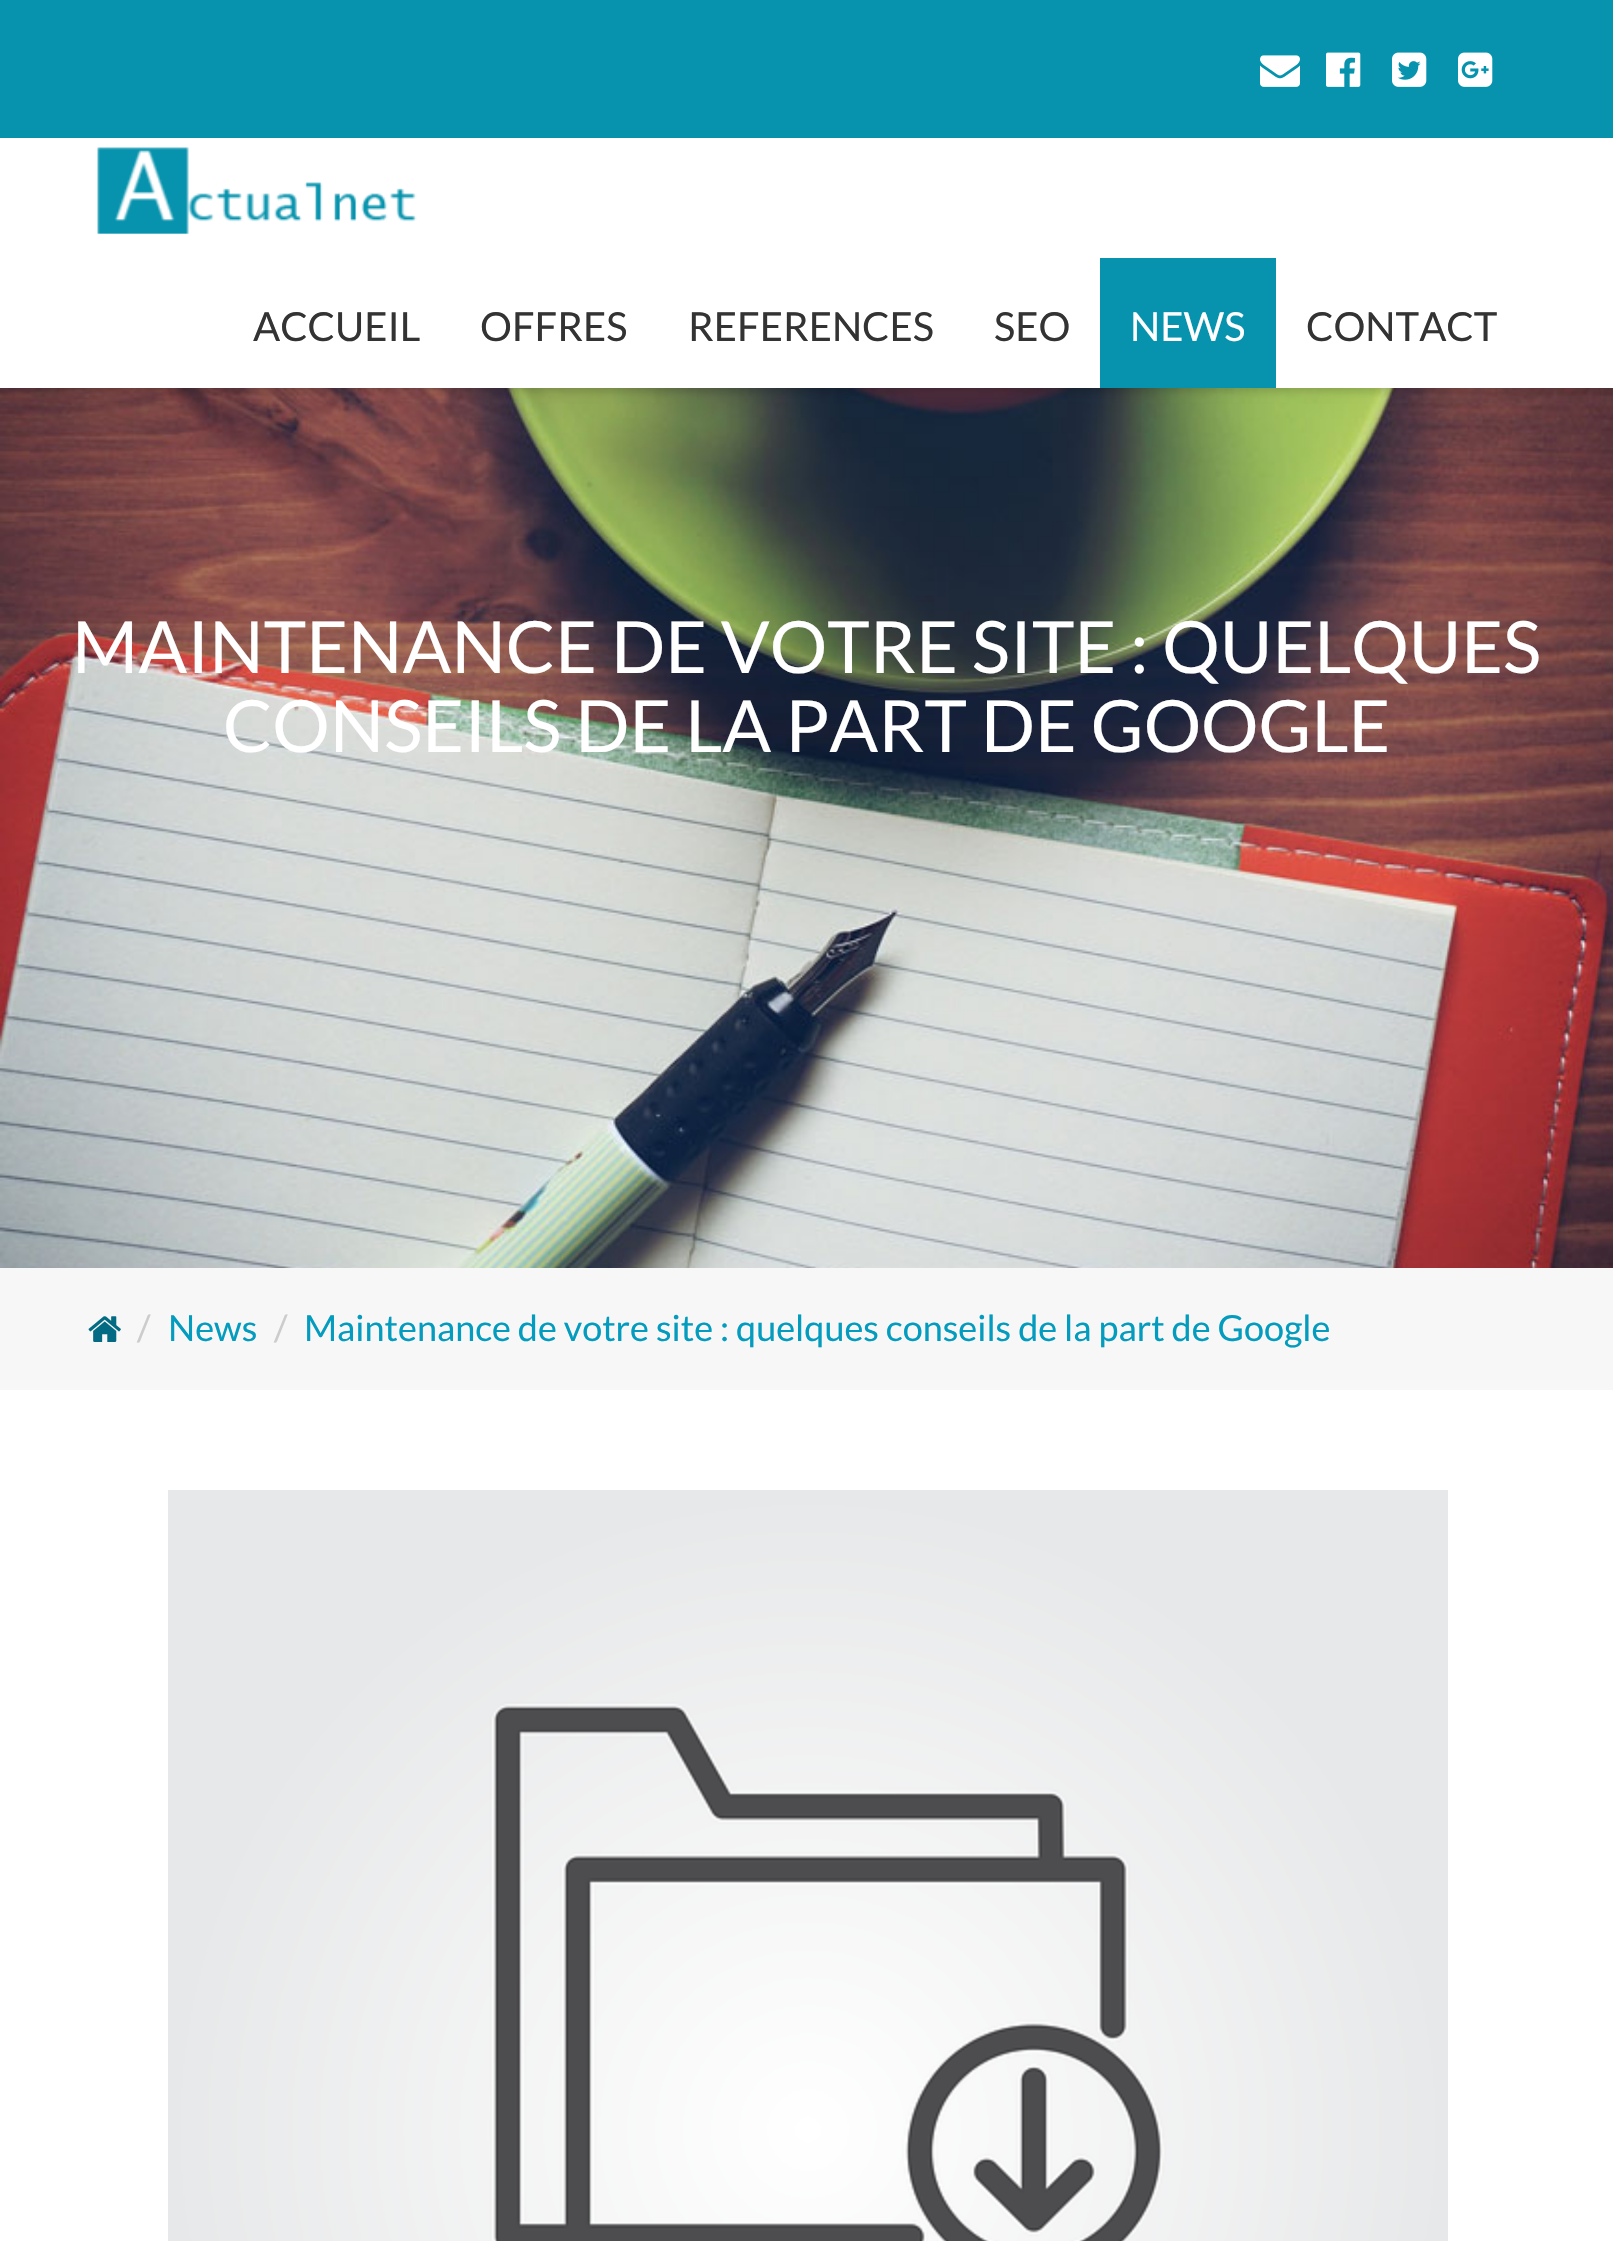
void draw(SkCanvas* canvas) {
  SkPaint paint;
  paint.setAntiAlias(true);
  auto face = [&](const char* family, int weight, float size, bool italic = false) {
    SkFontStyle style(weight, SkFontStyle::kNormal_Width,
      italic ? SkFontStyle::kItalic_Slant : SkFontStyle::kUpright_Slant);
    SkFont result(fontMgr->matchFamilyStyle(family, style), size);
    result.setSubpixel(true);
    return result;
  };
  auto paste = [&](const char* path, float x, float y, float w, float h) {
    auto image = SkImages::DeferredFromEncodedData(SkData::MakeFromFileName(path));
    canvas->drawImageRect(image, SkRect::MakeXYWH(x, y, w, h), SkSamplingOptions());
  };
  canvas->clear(0xffffffff);
  paint.setColor(0xff0793ad);
  canvas->drawRect(SkRect::MakeXYWH(0, 0, 1613, 138), paint);
  paste("img/1.png", 1260, 55, 40, 32);
  paste("img/2.png", 1326, 52, 35, 35);
  paste("img/3.png", 1392, 52, 35, 35);
  paste("img/4.png", 1458, 52, 35, 35);
  paste("img/6.png", 0, 388, 1613, 880);
  paint.setColor(0x26010101);
  paint.setMaskFilter(SkMaskFilter::MakeBlur(kNormal_SkBlurStyle, 4));
  canvas->drawRect(SkRect::MakeXYWH(0, 142, 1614, 250), paint);
  paint.setMaskFilter(nullptr);
  paint.setColor(0xffffffff);
  canvas->drawRect(SkRect::MakeXYWH(0, 138, 1613, 250), paint);
  paste("img/5.png", 97, 147, 320, 87);
  paint.setColor(0xff0793ad);
  canvas->drawRect(SkRect::MakeXYWH(1100, 258, 176, 130), paint);
  paint.setColor(0xfff7f7f7);
  canvas->drawRect(SkRect::MakeXYWH(0, 1268, 1613, 122), paint);
  paste("img/7.png", 88, 1316, 33, 26);
  paste("img/8.png", 168, 1490, 1280, 751);
  auto f0 = face("Lato", 400, 40);
  paint.setColor(0xff333333);
  {
    const struct { const char* s; float x, y; } items[] = {
      {"ACCUEIL", 253, 341},
      {"OFFRES", 480, 341},
      {"REFERENCES", 688, 341},
      {"SEO", 994, 341},
    };
    for (auto [s, x, y] : items) {
      canvas->drawString(s, x, y, f0, paint);
    }
  }
  paint.setColor(0xffffffff);
  canvas->drawString("NEWS", 1130, 341, f0, paint);
  paint.setColor(0xff333333);
  canvas->drawString("CONTACT", 1306, 341, f0, paint);
  auto f1 = face("Lato", 400, 72);
  paint.setColor(0xffffffff);
  canvas->drawString("MAINTENANCE DE VOTRE SITE : QUELQUES", 72, 673, f1, paint);
  canvas->drawString("CONSEILS DE LA PART DE GOOGLE", 223, 752, f1, paint);
  auto f2 = face("Lato", 400, 36);
  paint.setColor(0xffcccccc);
  canvas->drawString("/", 137, 1341, f2, paint);
  paint.setColor(0xff039bbe);
  canvas->drawString("News", 168, 1341, f2, paint);
  paint.setColor(0xffcccccc);
  canvas->drawString("/", 274, 1341, f2, paint);
  paint.setColor(0xff039bbe);
  canvas->drawString("Maintenance de votre site : quelques conseils de la part de Google", 304, 1341, f2, paint);
}
